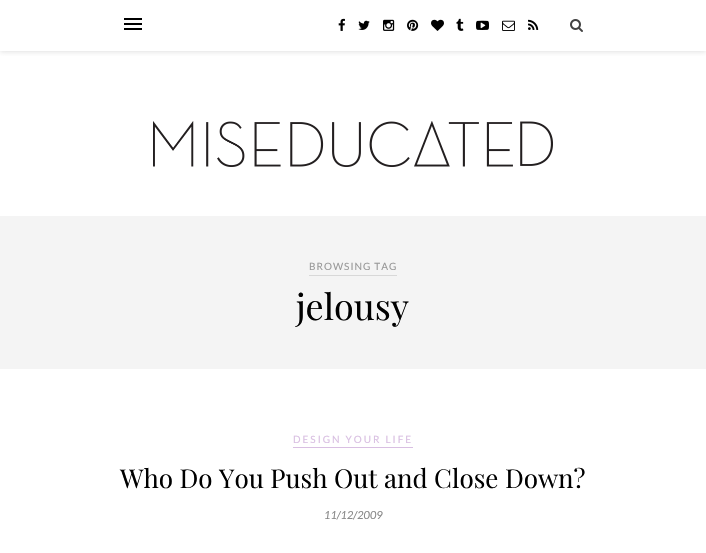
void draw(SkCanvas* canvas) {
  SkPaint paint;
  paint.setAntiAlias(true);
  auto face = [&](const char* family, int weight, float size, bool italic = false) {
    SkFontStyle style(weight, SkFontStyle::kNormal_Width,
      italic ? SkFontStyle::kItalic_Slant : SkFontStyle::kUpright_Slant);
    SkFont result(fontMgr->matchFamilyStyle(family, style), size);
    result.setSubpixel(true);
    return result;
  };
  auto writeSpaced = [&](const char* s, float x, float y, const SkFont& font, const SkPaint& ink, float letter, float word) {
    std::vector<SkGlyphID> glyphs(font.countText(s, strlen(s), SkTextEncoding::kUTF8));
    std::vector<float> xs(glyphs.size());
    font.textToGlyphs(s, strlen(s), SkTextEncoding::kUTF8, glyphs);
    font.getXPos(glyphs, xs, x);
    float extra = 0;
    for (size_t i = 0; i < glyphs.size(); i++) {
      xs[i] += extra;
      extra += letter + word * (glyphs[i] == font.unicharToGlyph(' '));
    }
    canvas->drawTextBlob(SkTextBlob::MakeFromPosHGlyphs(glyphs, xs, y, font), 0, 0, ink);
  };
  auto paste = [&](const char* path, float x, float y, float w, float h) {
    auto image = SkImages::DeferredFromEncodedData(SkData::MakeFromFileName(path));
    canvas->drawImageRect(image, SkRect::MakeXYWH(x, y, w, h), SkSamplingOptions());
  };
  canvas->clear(0xffffffff);
  canvas->save();
  canvas->clipRect(SkRect::MakeXYWH(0, 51, 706, 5));
  paint.setColor(0x75bebebe);
  paint.setMaskFilter(SkMaskFilter::MakeBlur(kNormal_SkBlurStyle, 2.5f));
  canvas->drawRect(SkRect::MakeXYWH(0, 1, 706, 51), paint);
  paint.setMaskFilter(nullptr);
  canvas->restore();
  {
    const struct { float x, y, w, h; SkColor color; } items[] = {
      {124, 18, 18, 2, 0xff000000},
      {124, 23, 18, 2, 0xff000000},
      {124, 28, 18, 2, 0xff000000},
    };
    for (auto [x, y, w, h, color] : items) {
      paint.setColor(color);
      canvas->drawRect(SkRect::MakeXYWH(x, y, w, h), paint);
    }
  }
  paste("img/1.png", 338, 18, 7, 13);
  paste("img/2.png", 358, 20, 12, 10);
  paste("img/3.png", 383, 19, 12, 12);
  paste("img/4.png", 407, 19, 12, 12);
  paste("img/5.png", 431, 19, 13, 12);
  paste("img/6.png", 456, 18, 8, 13);
  paste("img/7.png", 476, 20, 13, 10);
  paste("img/8.png", 502, 20, 13, 11);
  paste("img/9.png", 528, 19, 11, 11);
  paste("img/10.png", 570, 19, 13, 13);
  paste("img/11.png", 153, 121, 400, 46);
  {
    const struct { float x, y, w, h; SkColor color; } items[] = {
      {0, 216, 706, 153, 0xfff4f4f4},
      {309, 275, 88, 1, 0xffd8d8d8},
      {293, 447, 120, 1, 0xffd9bfe2},
    };
    for (auto [x, y, w, h, color] : items) {
      paint.setColor(color);
      canvas->drawRect(SkRect::MakeXYWH(x, y, w, h), paint);
    }
  }
  auto f0 = face("Lato", 400, 10);
  paint.setColor(0xff999999);
  writeSpaced("BROWSING TAG", 309, 270, f0, paint, 1, 0);
  auto f1 = face("Playfair Display", 400, 36);
  paint.setColor(0xff000000);
  canvas->drawString("jelousy", 296, 320, f1, paint);
  paint.setColor(0xffd9bfe2);
  writeSpaced("DESIGN YOUR LIFE", 293, 443, f0, paint, 2, 0);
  auto f2 = face("Playfair Display", 400, 26);
  paint.setColor(0xff000000);
  canvas->drawString("Who Do You Push Out and Close Down?", 120, 488, f2, paint);
  auto f3 = face("Lato", 400, 11, true);
  paint.setColor(0xff888888);
  canvas->drawString("11/12/2009", 324, 519, f3, paint);
}
